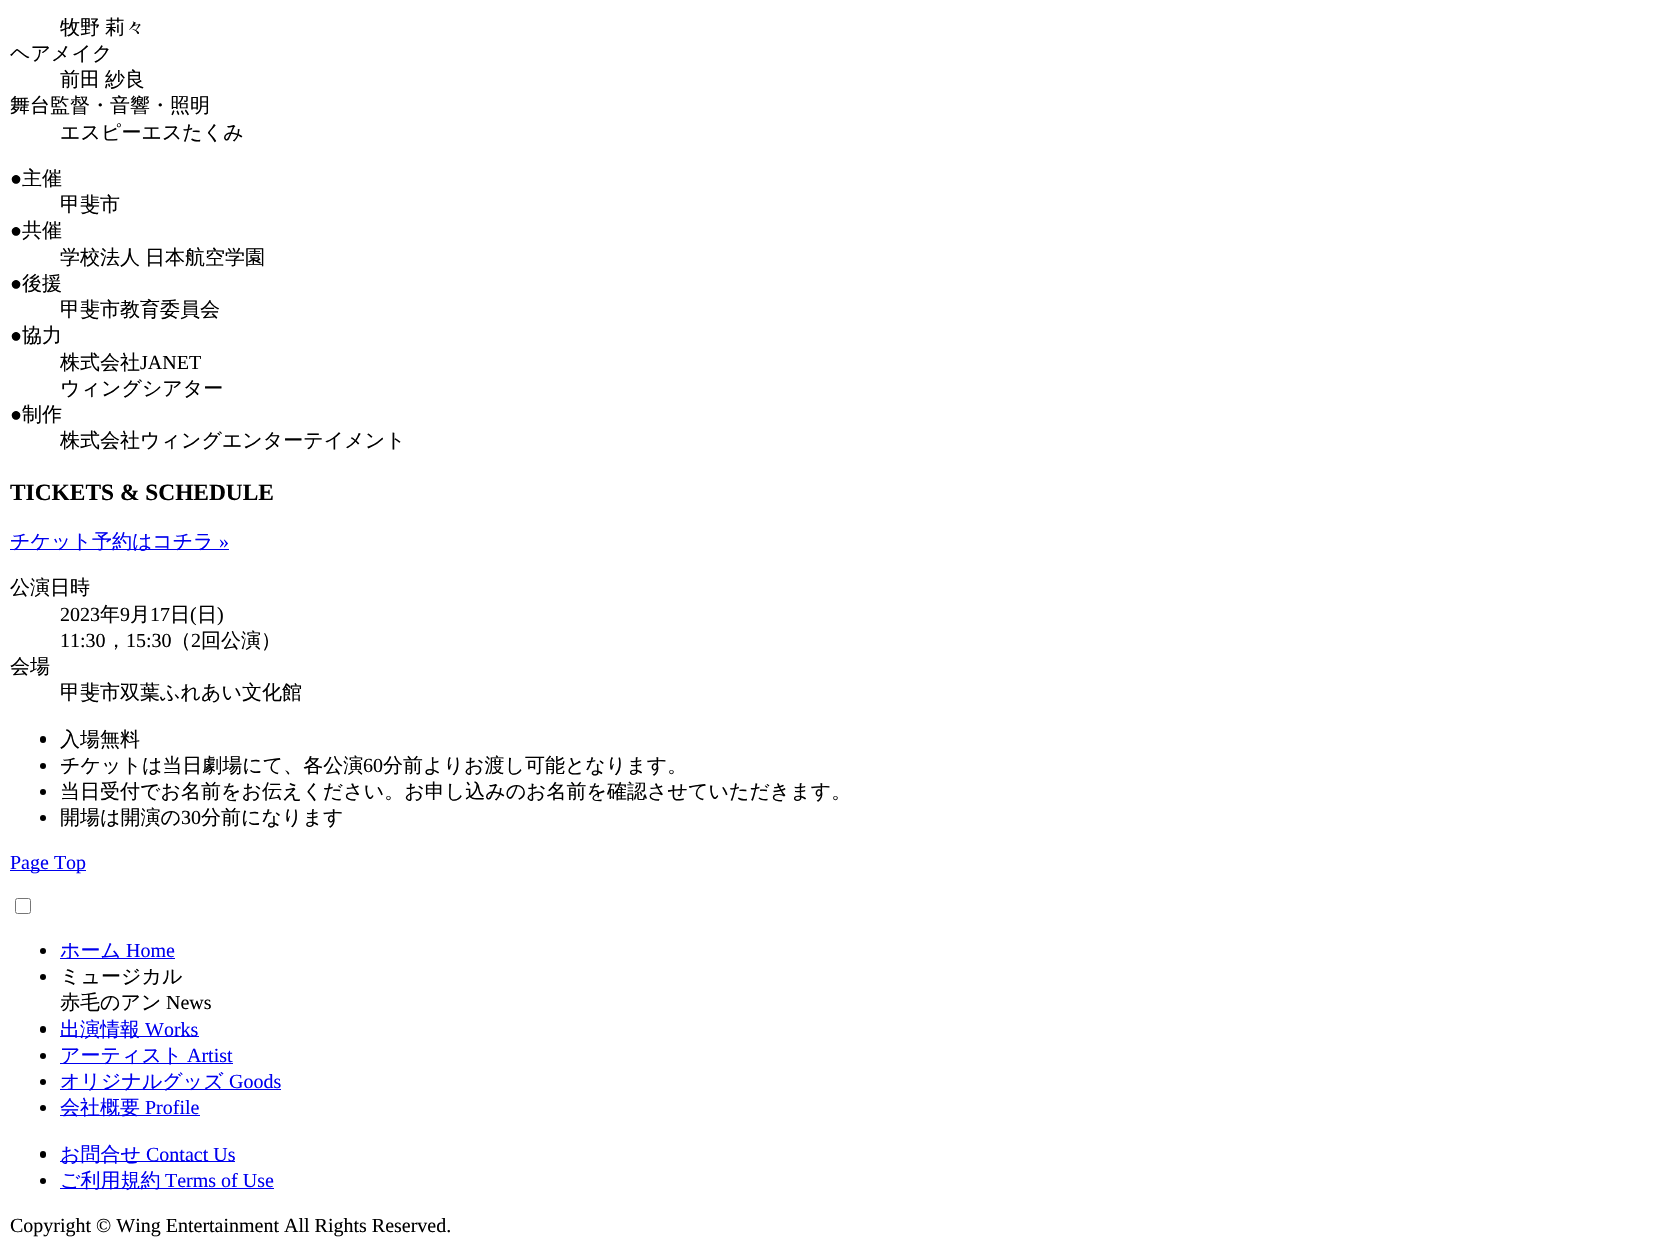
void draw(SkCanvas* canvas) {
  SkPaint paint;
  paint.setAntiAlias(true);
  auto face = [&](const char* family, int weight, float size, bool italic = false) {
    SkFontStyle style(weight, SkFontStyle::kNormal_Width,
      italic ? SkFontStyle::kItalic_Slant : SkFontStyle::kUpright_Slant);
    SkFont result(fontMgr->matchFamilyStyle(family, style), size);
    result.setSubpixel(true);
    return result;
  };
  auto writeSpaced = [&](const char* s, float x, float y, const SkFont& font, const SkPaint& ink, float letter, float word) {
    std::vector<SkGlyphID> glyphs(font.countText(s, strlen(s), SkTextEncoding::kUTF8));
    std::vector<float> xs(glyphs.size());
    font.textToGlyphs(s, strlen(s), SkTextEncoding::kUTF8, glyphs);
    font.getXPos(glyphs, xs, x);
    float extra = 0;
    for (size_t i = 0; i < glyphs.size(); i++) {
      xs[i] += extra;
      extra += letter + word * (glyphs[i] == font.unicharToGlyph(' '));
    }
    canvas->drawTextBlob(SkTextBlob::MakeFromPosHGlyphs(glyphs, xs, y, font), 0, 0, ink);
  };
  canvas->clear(0xffffffff);
  paint.setColor(0xff0000ee);
  canvas->drawRect(SkRect::MakeXYWH(10, 549, 219, 1), paint);
  paint.setColor(0xff000000);
  canvas->drawRoundRect(SkRect::MakeXYWH(40, 736, 6, 7), 3, 3, paint);
  canvas->drawCircle(43, 766, 3, paint);
  canvas->drawCircle(43, 792, 3, paint);
  canvas->drawCircle(43, 818, 3, paint);
  paint.setColor(0xff0000ee);
  canvas->drawRect(SkRect::MakeXYWH(10, 870, 76, 1), paint);
  paint.setStroke(true);
  paint.setStrokeWidth(1);
  paint.setColor(0xff767676);
  canvas->drawRoundRect(SkRect::MakeXYWH(15.5f, 898.5f, 15, 15), 2, 2, paint);
  paint.setStroke(false);
  paint.setColor(0xff000000);
  canvas->drawCircle(43, 951, 3, paint);
  paint.setColor(0xff0000ee);
  canvas->drawRect(SkRect::MakeXYWH(60, 958, 115, 1), paint);
  paint.setColor(0xff000000);
  canvas->drawCircle(43, 977, 3, paint);
  canvas->drawRoundRect(SkRect::MakeXYWH(40, 1026, 6, 7), 3, 3, paint);
  paint.setColor(0xff0000ee);
  canvas->drawRect(SkRect::MakeXYWH(60, 1036, 139, 1), paint);
  paint.setColor(0xff000000);
  canvas->drawCircle(43, 1056, 3, paint);
  paint.setColor(0xff0000ee);
  canvas->drawRect(SkRect::MakeXYWH(60, 1063, 173, 1), paint);
  paint.setColor(0xff000000);
  canvas->drawCircle(43, 1082, 3, paint);
  paint.setColor(0xff0000ee);
  canvas->drawRect(SkRect::MakeXYWH(60, 1089, 221, 1), paint);
  paint.setColor(0xff000000);
  canvas->drawCircle(43, 1108, 3, paint);
  paint.setColor(0xff0000ee);
  canvas->drawRect(SkRect::MakeXYWH(60, 1115, 140, 1), paint);
  paint.setColor(0xff000000);
  canvas->drawRoundRect(SkRect::MakeXYWH(40, 1151, 6, 7), 3, 3, paint);
  paint.setColor(0xff0000ee);
  canvas->drawRect(SkRect::MakeXYWH(60, 1161, 175, 1), paint);
  paint.setColor(0xff000000);
  canvas->drawCircle(43, 1181, 3, paint);
  paint.setColor(0xff0000ee);
  canvas->drawRect(SkRect::MakeXYWH(60, 1188, 214, 1), paint);
  auto f0 = face("WenQuanYi Zen Hei", 500, 20);
  paint.setColor(0xff000000);
  writeSpaced("牧野 莉々", 60, 34, f0, paint, 0, -1);
  canvas->drawString("ヘアメイク", 10, 60, f0, paint);
  writeSpaced("前田 紗良", 60, 86, f0, paint, 0, -1);
  canvas->drawString("舞台監督・音響・照明", 10, 112, f0, paint);
  canvas->drawString("エスピーエスたくみ", 60, 139, f0, paint);
  auto f1 = face("Liberation Serif", 400, 20);
  canvas->drawString("●", 10, 185, f1, paint);
  canvas->drawString("主催", 22, 185, f0, paint);
  canvas->drawString("甲斐市", 60, 211, f0, paint);
  canvas->drawString("●", 10, 237, f1, paint);
  canvas->drawString("共催", 22, 237, f0, paint);
  writeSpaced("学校法人 日本航空学園", 60, 264, f0, paint, 0, -1);
  canvas->drawString("●", 10, 290, f1, paint);
  canvas->drawString("後援", 22, 290, f0, paint);
  canvas->drawString("甲斐市教育委員会", 60, 316, f0, paint);
  canvas->drawString("●", 10, 342, f1, paint);
  canvas->drawString("協力", 22, 342, f0, paint);
  canvas->drawString("株式会社", 60, 369, f0, paint);
  canvas->drawString("JANET", 140, 369, f1, paint);
  canvas->drawString("ウィングシアター", 60, 395, f0, paint);
  canvas->drawString("●", 10, 421, f1, paint);
  canvas->drawString("制作", 22, 421, f0, paint);
  canvas->drawString("株式会社ウィングエンターテイメント", 60, 447, f0, paint);
  auto f2 = face("Liberation Serif", 700, 23.4f);
  canvas->drawString("TICKETS & SCHEDULE", 10, 500, f2, paint);
  paint.setColor(0xff0000ee);
  canvas->drawString("チケット予約はコチラ", 10, 548, f0, paint);
  canvas->drawString("»", 219, 548, f1, paint);
  paint.setColor(0xff000000);
  canvas->drawString("公演日時", 10, 594, f0, paint);
  canvas->drawString("2023", 60, 621, f1, paint);
  canvas->drawString("年", 100, 621, f0, paint);
  canvas->drawString("9", 120, 621, f1, paint);
  canvas->drawString("月", 130, 621, f0, paint);
  canvas->drawString("17", 150, 621, f1, paint);
  canvas->drawString("日", 170, 621, f0, paint);
  canvas->drawString("(", 190, 621, f1, paint);
  canvas->drawString("日", 197, 621, f0, paint);
  canvas->drawString(")", 217, 621, f1, paint);
  canvas->drawString("11:30", 60, 647, f1, paint);
  canvas->drawString("，", 106, 647, f0, paint);
  canvas->drawString("15:30", 126, 647, f1, paint);
  canvas->drawString("（", 171, 647, f0, paint);
  canvas->drawString("2", 191, 647, f1, paint);
  {
    const struct { const char* s; float x, y; } items[] = {
      {"回公演）", 201, 647},
      {"会場", 10, 673},
      {"甲斐市双葉ふれあい文化館", 60, 699},
      {"入場無料", 60, 746},
      {"チケットは当日劇場にて、各公演", 60, 772},
    };
    for (auto [s, x, y] : items) {
      canvas->drawString(s, x, y, f0, paint);
    }
  }
  canvas->drawString("60", 363, 772, f1, paint);
  {
    const struct { const char* s; float x, y; } items[] = {
      {"分前よりお渡し可能となります。", 383, 772},
      {"当日受付でお名前をお伝えください。お申し込みのお名前を確認させていただきます。", 60, 798},
      {"開場は開演の", 60, 824},
    };
    for (auto [s, x, y] : items) {
      canvas->drawString(s, x, y, f0, paint);
    }
  }
  canvas->drawString("30", 181, 824, f1, paint);
  canvas->drawString("分前になります", 201, 824, f0, paint);
  paint.setColor(0xff0000ee);
  canvas->drawString("Page Top", 10, 869, f1, paint);
  canvas->drawString("ホーム", 60, 957, f0, paint);
  canvas->drawString("Home", 126, 957, f1, paint);
  paint.setColor(0xff000000);
  canvas->drawString("ミュージカル", 60, 983, f0, paint);
  canvas->drawString("赤毛のアン", 60, 1009, f0, paint);
  canvas->drawString("News", 166, 1009, f1, paint);
  paint.setColor(0xff0000ee);
  canvas->drawString("出演情報", 60, 1036, f0, paint);
  canvas->drawString("Works", 145, 1036, f1, paint);
  canvas->drawString("アーティスト", 60, 1062, f0, paint);
  canvas->drawString("Artist", 187, 1062, f1, paint);
  canvas->drawString("オリジナルグッズ", 60, 1088, f0, paint);
  canvas->drawString("Goods", 229, 1088, f1, paint);
  canvas->drawString("会社概要", 60, 1114, f0, paint);
  canvas->drawString("Profile", 145, 1114, f1, paint);
  canvas->drawString("お問合せ", 60, 1161, f0, paint);
  canvas->drawString("Contact Us", 146, 1161, f1, paint);
  canvas->drawString("ご利用規約", 60, 1187, f0, paint);
  canvas->drawString("Terms of Use", 165, 1187, f1, paint);
  paint.setColor(0xff000000);
  canvas->drawString("Copyright © Wing Entertainment All Rights Reserved.", 10, 1232, f1, paint);
}
